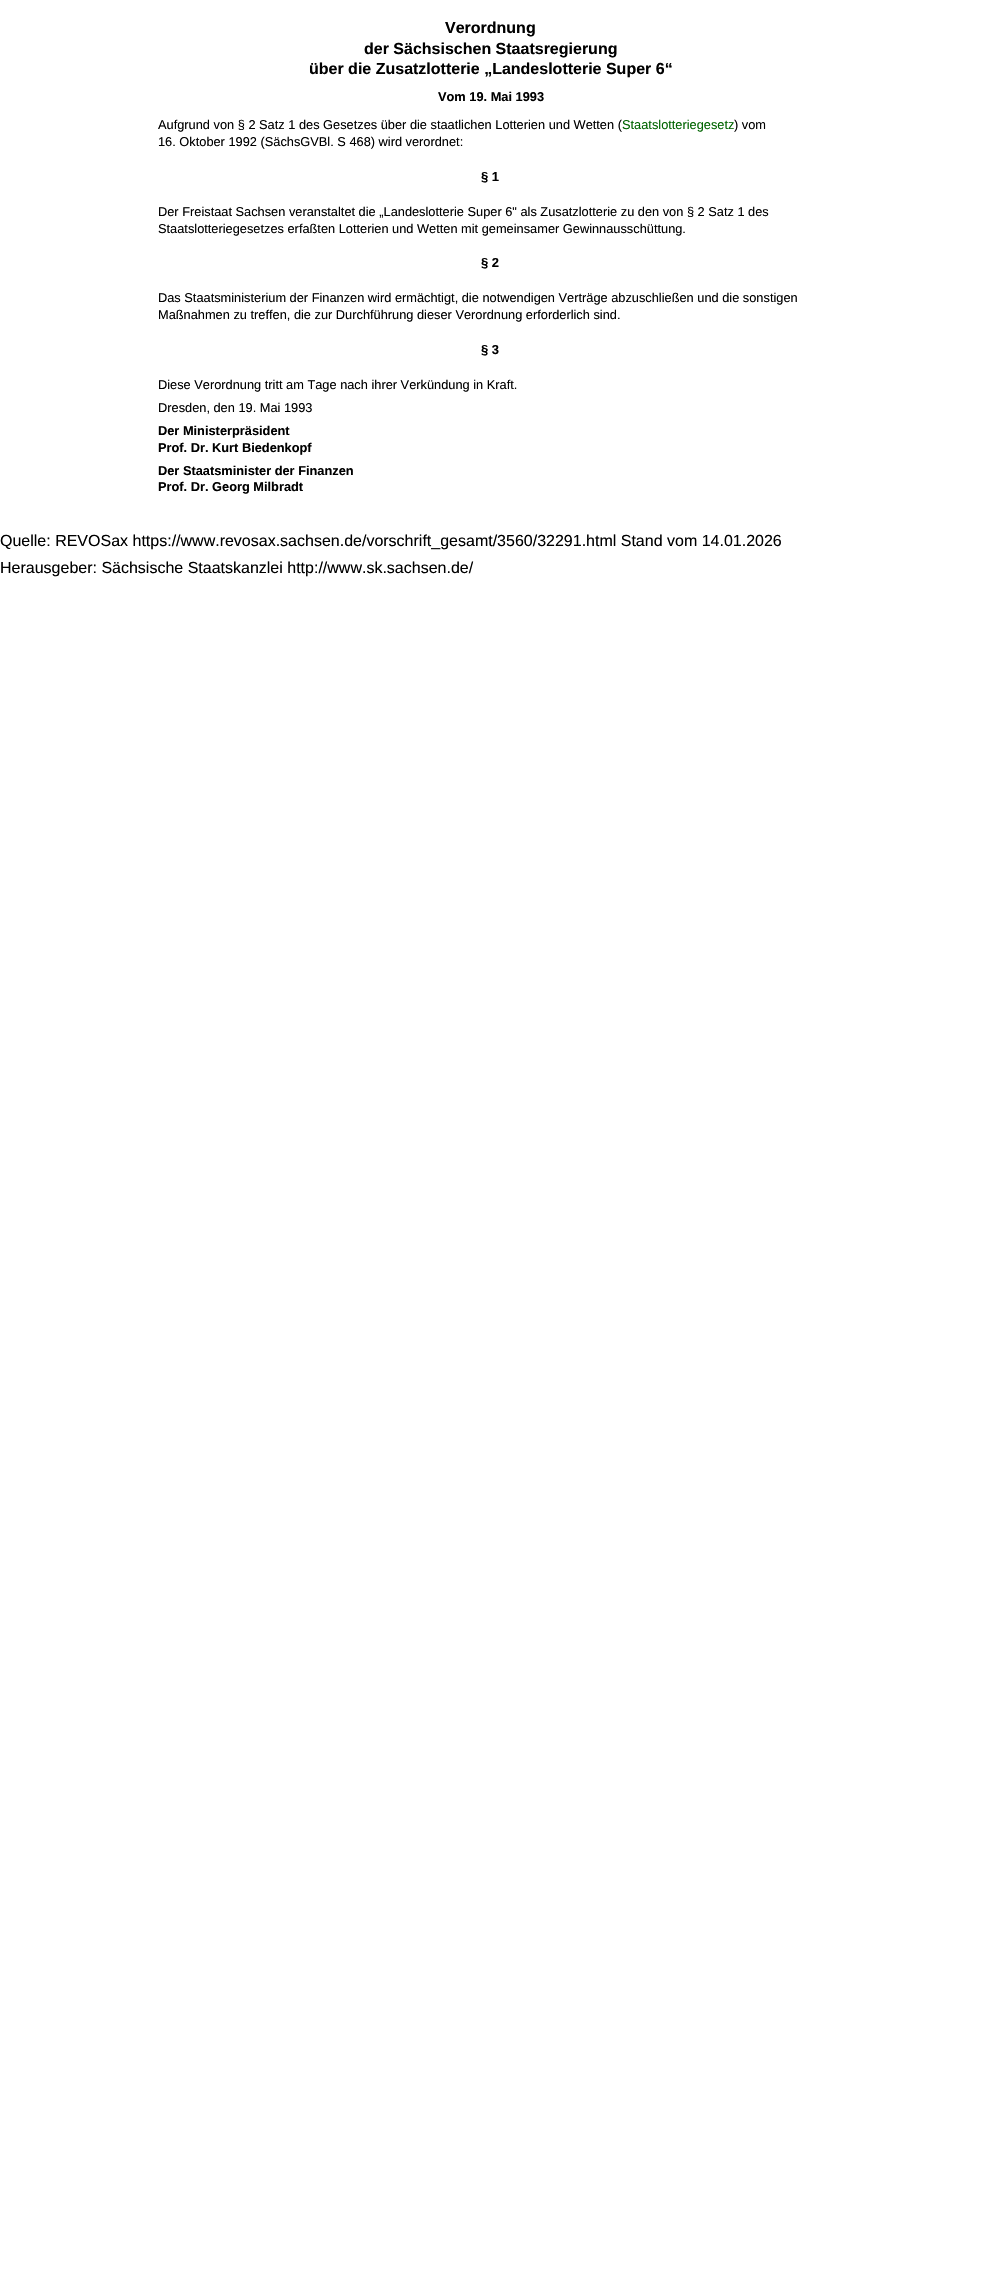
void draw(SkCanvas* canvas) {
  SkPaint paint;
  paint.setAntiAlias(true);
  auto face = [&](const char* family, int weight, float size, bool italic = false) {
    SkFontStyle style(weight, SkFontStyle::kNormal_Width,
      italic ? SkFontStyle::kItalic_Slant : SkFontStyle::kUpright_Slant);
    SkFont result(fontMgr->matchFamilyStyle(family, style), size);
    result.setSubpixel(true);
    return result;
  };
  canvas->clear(0xffffffff);
  auto f0 = face("Liberation Sans", 700, 16);
  paint.setColor(0xff000000);
  {
    const struct { const char* s; float x, y; } items[] = {
      {"Verordnung", 445, 33},
      {"der Sächsischen Staatsregierung", 364, 54},
      {"über die Zusatzlotterie „Landeslotterie Super 6“", 309, 74},
    };
    for (auto [s, x, y] : items) {
      canvas->drawString(s, x, y, f0, paint);
    }
  }
  auto f1 = face("Liberation Sans", 700, 12.8f);
  canvas->drawString("Vom 19. Mai 1993", 438, 101, f1, paint);
  auto f2 = face("Liberation Sans", 400, 12.8f);
  canvas->drawString("Aufgrund von § 2 Satz 1 des Gesetzes über die staatlichen Lotterien und Wetten (", 158, 129, f2, paint);
  paint.setColor(0xff006400);
  canvas->drawString("Staatslotteriegesetz", 622, 129, f2, paint);
  paint.setColor(0xff000000);
  canvas->drawString(") vom", 734, 129, f2, paint);
  canvas->drawString("16. Oktober 1992 (SächsGVBl. S 468) wird verordnet:", 158, 146, f2, paint);
  auto f3 = face("Liberation Sans", 700, 13);
  canvas->drawString("§ 1", 481, 181, f3, paint);
  canvas->drawString("Der Freistaat Sachsen veranstaltet die „Landeslotterie Super 6\" als Zusatzlotterie zu den von § 2 Satz 1 des", 158, 216, f2, paint);
  canvas->drawString("Staatslotteriegesetzes erfaßten Lotterien und Wetten mit gemeinsamer Gewinnausschüttung.", 158, 233, f2, paint);
  canvas->drawString("§ 2", 481, 267, f3, paint);
  canvas->drawString("Das Staatsministerium der Finanzen wird ermächtigt, die notwendigen Verträge abzuschließen und die sonstigen", 158, 302, f2, paint);
  canvas->drawString("Maßnahmen zu treffen, die zur Durchführung dieser Verordnung erforderlich sind.", 158, 319, f2, paint);
  canvas->drawString("§ 3", 481, 354, f3, paint);
  canvas->drawString("Diese Verordnung tritt am Tage nach ihrer Verkündung in Kraft.", 158, 389, f2, paint);
  canvas->drawString("Dresden, den 19. Mai 1993", 158, 412, f2, paint);
  {
    const struct { const char* s; float x, y; } items[] = {
      {"Der Ministerpräsident", 158, 435},
      {"Prof. Dr. Kurt Biedenkopf", 158, 452},
      {"Der Staatsminister der Finanzen", 158, 475},
      {"Prof. Dr. Georg Milbradt", 158, 491},
    };
    for (auto [s, x, y] : items) {
      canvas->drawString(s, x, y, f1, paint);
    }
  }
  auto f4 = face("Liberation Sans", 400, 16);
  canvas->drawString("Quelle: REVOSax https://www.revosax.sachsen.de/vorschrift_gesamt/3560/32291.html Stand vom 14.01.2026", 0, 546, f4, paint);
  canvas->drawString("Herausgeber: Sächsische Staatskanzlei http://www.sk.sachsen.de/", 0, 573, f4, paint);
}
